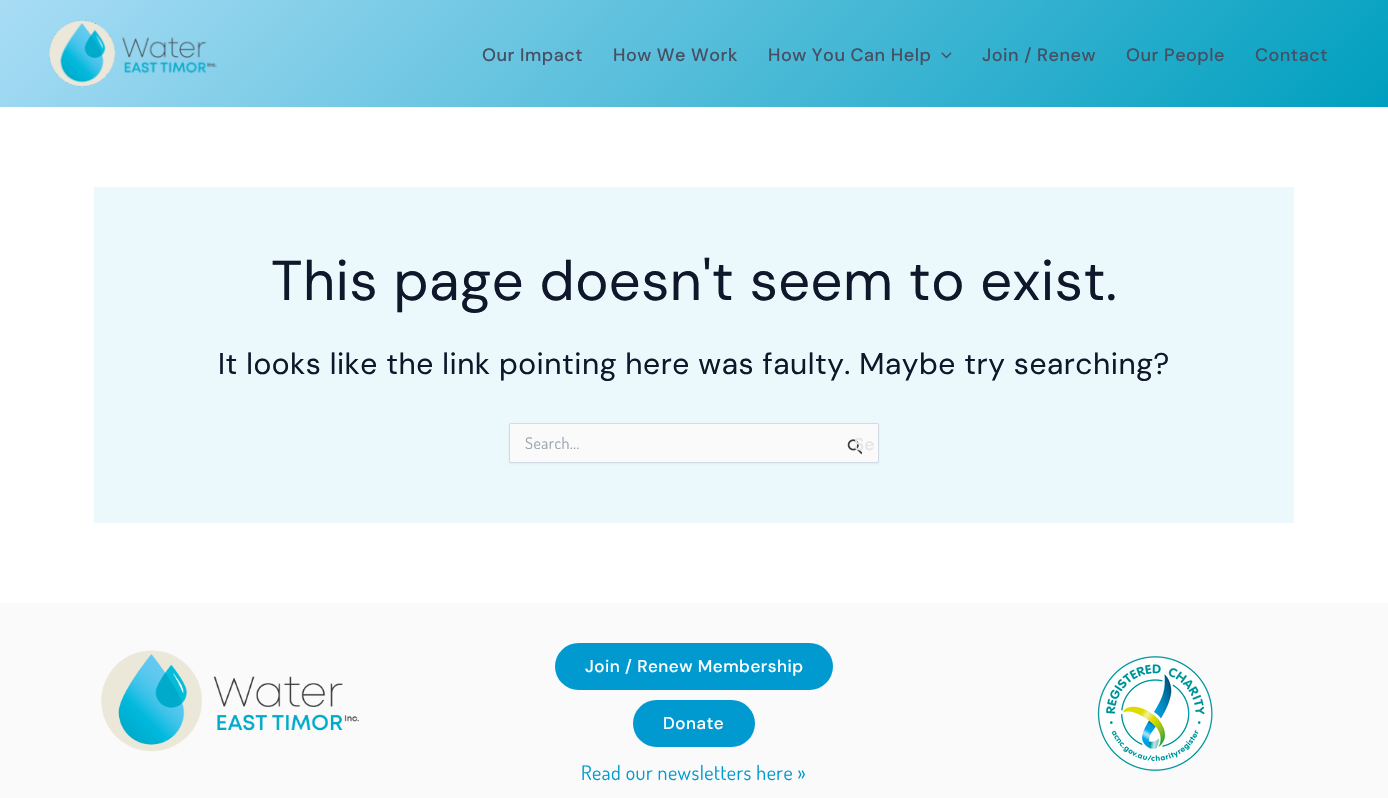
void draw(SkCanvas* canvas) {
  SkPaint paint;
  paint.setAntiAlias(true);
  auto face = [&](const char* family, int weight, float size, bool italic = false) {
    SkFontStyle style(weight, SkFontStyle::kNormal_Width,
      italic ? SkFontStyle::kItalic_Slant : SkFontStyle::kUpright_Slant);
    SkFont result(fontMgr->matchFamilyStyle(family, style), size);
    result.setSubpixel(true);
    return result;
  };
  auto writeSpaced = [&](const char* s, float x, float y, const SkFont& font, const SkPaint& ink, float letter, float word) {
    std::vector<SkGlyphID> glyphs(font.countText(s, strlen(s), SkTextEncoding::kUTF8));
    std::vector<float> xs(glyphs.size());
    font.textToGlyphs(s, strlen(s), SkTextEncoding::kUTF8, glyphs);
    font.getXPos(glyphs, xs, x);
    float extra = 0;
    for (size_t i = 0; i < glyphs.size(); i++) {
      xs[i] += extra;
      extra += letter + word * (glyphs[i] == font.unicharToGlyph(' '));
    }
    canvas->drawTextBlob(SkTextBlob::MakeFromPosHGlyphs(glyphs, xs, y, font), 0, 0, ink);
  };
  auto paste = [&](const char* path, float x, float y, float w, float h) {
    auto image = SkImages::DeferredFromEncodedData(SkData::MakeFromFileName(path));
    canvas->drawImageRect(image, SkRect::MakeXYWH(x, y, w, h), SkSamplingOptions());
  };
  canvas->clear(0xffffffff);
  {
    const SkColor colors[] = {0xffa9dcf5, 0xff009fbf};
    const float stops[] = {0, 1};
    const SkPoint ends[] = {{320, -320}, {1068, 427}};
    paint.setShader(SkGradientShader::MakeLinear(ends, colors, stops, 2, SkTileMode::kClamp));
    paint.setAlpha(255);
  }
  canvas->drawRect(SkRect::MakeXYWH(0, 0, 1388, 107), paint);
  paste("img/1.png", 49, 20, 168, 67);
  paste("img/2.png", 941, 52, 11, 7);
  paint.setShader(nullptr);
  paint.setColor(0xffebf8fc);
  canvas->drawRect(SkRect::MakeXYWH(94, 187, 1200, 336), paint);
  paint.setColor(0x0d000000);
  paint.setMaskFilter(SkMaskFilter::MakeBlur(kNormal_SkBlurStyle, 1));
  canvas->drawRoundRect(SkRect::MakeXYWH(509, 424, 370, 40), 2, 2, paint);
  paint.setMaskFilter(nullptr);
  paint.setColor(0xfffafafa);
  canvas->drawRoundRect(SkRect::MakeXYWH(509.5f, 423.5f, 369, 39), 1.5f, 1.5f, paint);
  paint.setStroke(true);
  paint.setStrokeWidth(1);
  paint.setColor(0xffd1dae5);
  canvas->drawRoundRect(SkRect::MakeXYWH(509.5f, 423.5f, 369, 39), 1.5f, 1.5f, paint);
  paste("img/3.png", 847, 439, 15, 16);
  paint.setStroke(false);
  paint.setColor(0xfffafafa);
  canvas->drawRect(SkRect::MakeXYWH(0, 603, 1388, 195), paint);
  paste("img/4.png", 101, 650, 258, 102);
  paint.setColor(0xff009ad1);
  canvas->drawRoundRect(SkRect::MakeXYWH(555, 643, 278, 47), 23.5f, 23.5f, paint);
  canvas->drawRoundRect(SkRect::MakeXYWH(633, 700, 122, 47), 23.5f, 23.5f, paint);
  paste("img/5.png", 1097, 656, 116, 115);
  auto f0 = face("DM Sans", 500, 18);
  paint.setColor(0xff455064);
  {
    const struct { const char* s; float x, y; } items[] = {
      {"Our Impact", 482, 61},
      {"How We Work", 613, 61},
      {"How You Can Help", 768, 61},
      {"Join / Renew", 982, 61},
      {"Our People", 1126, 61},
      {"Contact", 1255, 61},
    };
    for (auto [s, x, y] : items) {
      writeSpaced(s, x, y, f0, paint, 0.5f, 0);
    }
  }
  auto f1 = face("DM Sans", 400, 56);
  paint.setColor(0xff0f172a);
  writeSpaced("This page doesn't seem to exist.", 271, 300, f1, paint, 0.5f, 0);
  auto f2 = face("DM Sans", 400, 30);
  writeSpaced("It looks like the link pointing here was faulty. Maybe try searching?", 218, 374, f2, paint, 0.5f, 0);
  auto f3 = face("Dosis", 400, 16);
  paint.setColor(0xff9ca3af);
  writeSpaced("Search...", 525, 449, f3, paint, 0.5f, 0);
  auto f4 = face("DM Sans", 500, 17);
  paint.setColor(0xffe4e5e5);
  writeSpaced("Se", 854, 450, f4, paint, 0.5f, 0);
  paint.setColor(0xffffffff);
  writeSpaced("Join / Renew Membership", 585, 672, f4, paint, 0.5f, 0);
  writeSpaced("Donate", 663, 729, f4, paint, 0.5f, 0);
  auto f5 = face("Dosis", 400, 20);
  paint.setColor(0xff009ad1);
  writeSpaced("Read our newsletters here »", 581, 780, f5, paint, 0.5f, 0);
}
